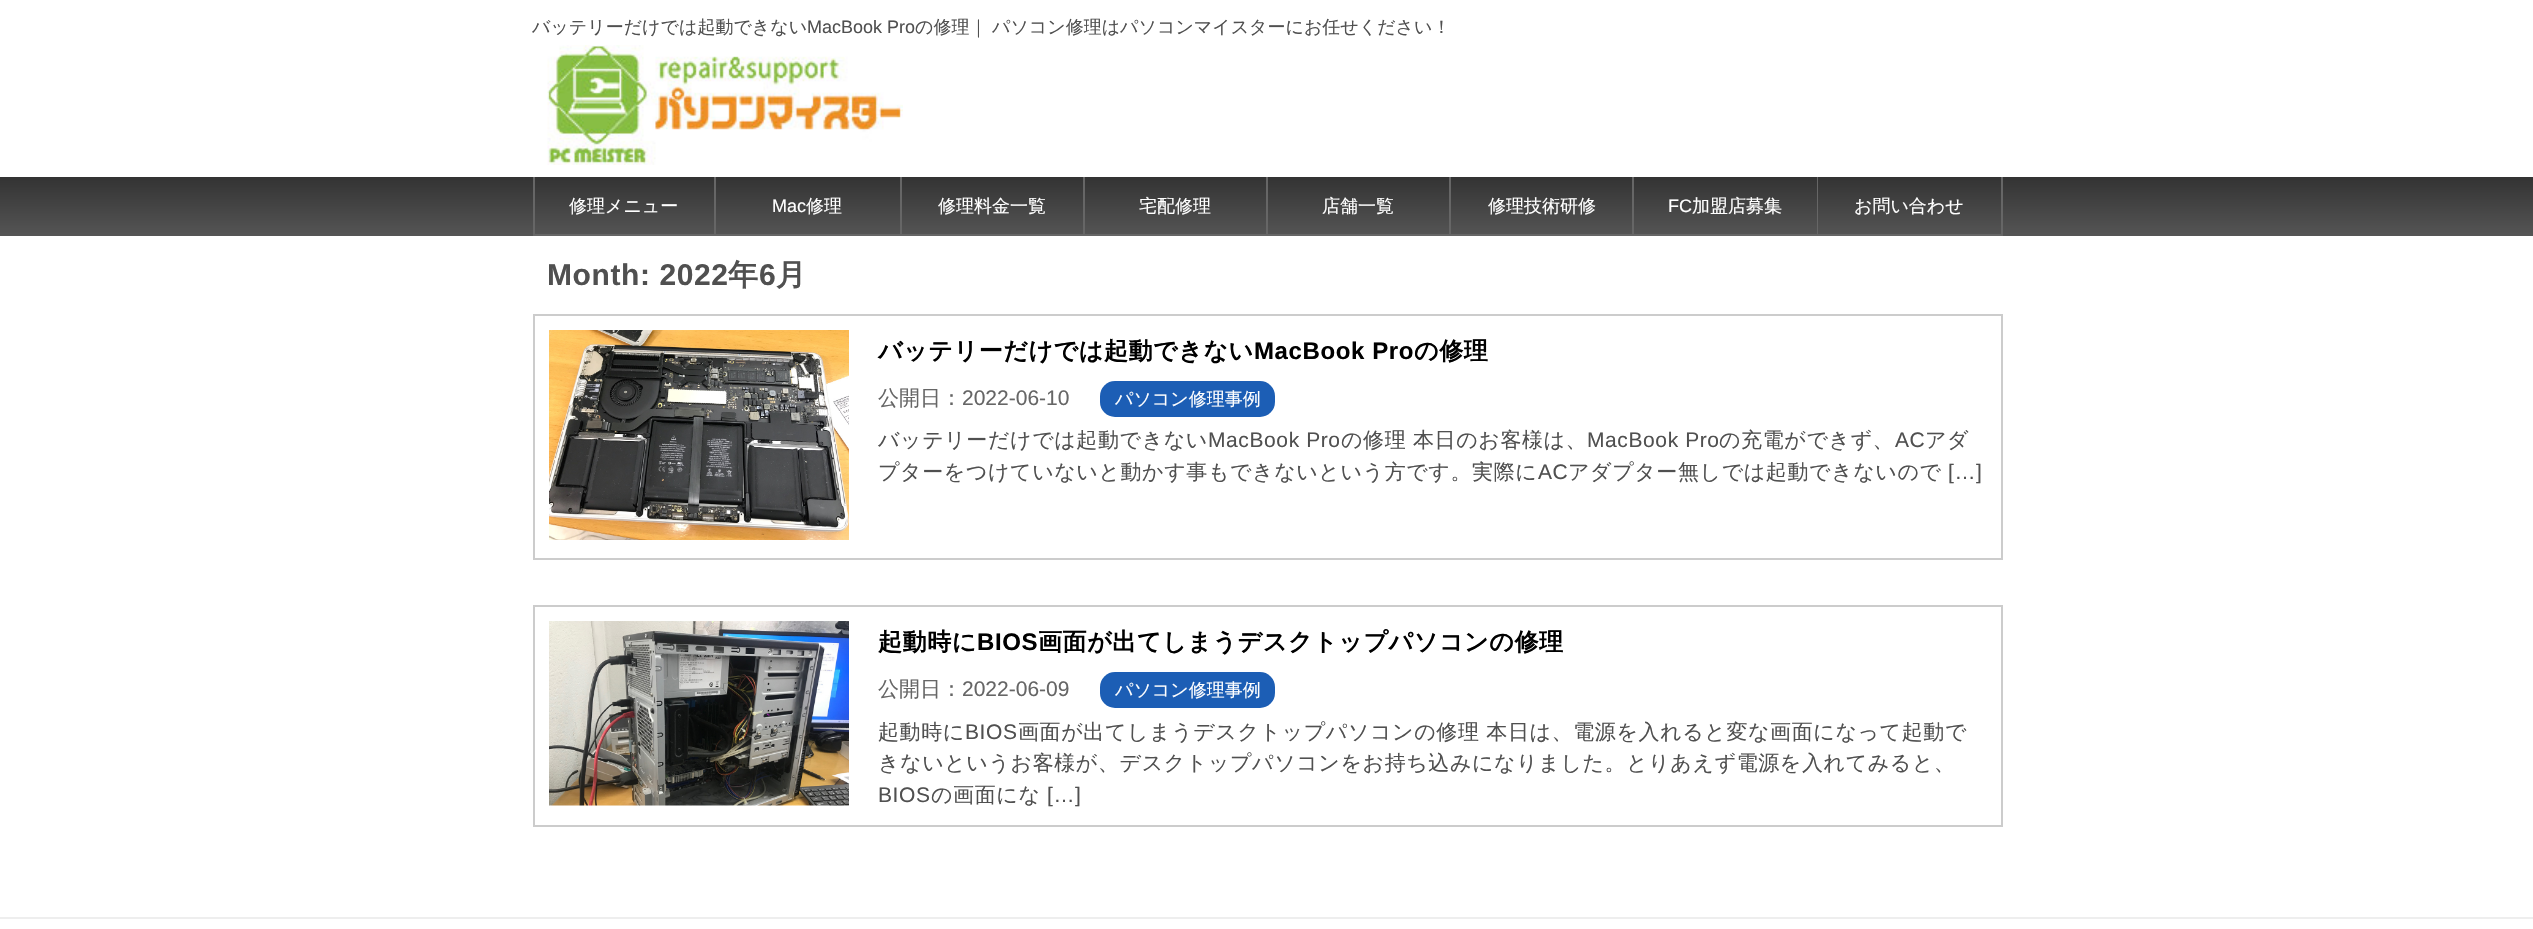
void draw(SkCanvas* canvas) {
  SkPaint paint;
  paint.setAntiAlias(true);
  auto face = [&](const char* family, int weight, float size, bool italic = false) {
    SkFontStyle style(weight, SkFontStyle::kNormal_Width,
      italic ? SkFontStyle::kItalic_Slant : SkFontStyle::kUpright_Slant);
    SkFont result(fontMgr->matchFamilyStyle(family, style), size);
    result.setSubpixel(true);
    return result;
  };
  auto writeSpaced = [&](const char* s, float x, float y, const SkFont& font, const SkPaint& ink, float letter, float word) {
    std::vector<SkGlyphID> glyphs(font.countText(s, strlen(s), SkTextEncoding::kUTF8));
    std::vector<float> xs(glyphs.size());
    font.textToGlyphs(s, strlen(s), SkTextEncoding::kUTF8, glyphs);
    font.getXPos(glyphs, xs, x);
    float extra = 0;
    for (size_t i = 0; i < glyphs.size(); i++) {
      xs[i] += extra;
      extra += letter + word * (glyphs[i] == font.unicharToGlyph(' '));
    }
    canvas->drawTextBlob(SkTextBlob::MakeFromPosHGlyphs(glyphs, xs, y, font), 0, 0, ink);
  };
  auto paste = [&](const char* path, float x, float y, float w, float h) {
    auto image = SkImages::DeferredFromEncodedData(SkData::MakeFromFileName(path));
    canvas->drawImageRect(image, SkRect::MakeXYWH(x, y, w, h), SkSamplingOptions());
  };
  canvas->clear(0xffffffff);
  paste("img/1.png", 547, 45, 356, 120);
  {
    const SkColor colors[] = {0xff333333, 0xff555555};
    const float stops[] = {0, 1};
    const SkPoint ends[] = {{1267, 177}, {1267, 236}};
    paint.setShader(SkGradientShader::MakeLinear(ends, colors, stops, 2, SkTileMode::kClamp));
    paint.setAlpha(255);
  }
  canvas->drawRect(SkRect::MakeXYWH(0, 177, 2533, 59), paint);
  paint.setShader(nullptr);
  {
    const struct { float x, y, w, h; SkColor color; } items[] = {
      {714, 177, 2, 59, 0xff666666},
      {533, 234, 183, 2, 0xff666666},
      {533, 177, 2, 59, 0xff666666},
      {900, 177, 2, 59, 0xff666666},
      {716, 234, 186, 2, 0xff666666},
      {1083, 177, 2, 59, 0xff666666},
      {902, 234, 183, 2, 0xff666666},
      {1266, 177, 2, 59, 0xff666666},
      {1085, 234, 183, 2, 0xff666666},
      {1449, 177, 2, 59, 0xff666666},
      {1268, 234, 183, 2, 0xff666666},
      {1632, 177, 2, 59, 0xff666666},
      {1451, 234, 183, 2, 0xff666666},
      {1817, 177, 1, 59, 0xff666666},
      {1634, 234, 184, 2, 0xff666666},
      {2001, 177, 2, 59, 0xff666666},
      {1818, 234, 185, 2, 0xff666666},
    };
    for (auto [x, y, w, h, color] : items) {
      paint.setColor(color);
      canvas->drawRect(SkRect::MakeXYWH(x, y, w, h), paint);
    }
  }
  paint.setStroke(true);
  paint.setStrokeWidth(2);
  paint.setColor(0xffcccccc);
  canvas->drawRect(SkRect::MakeXYWH(534, 315, 1468, 244), paint);
  paste("img/2.png", 549, 330, 300, 210);
  paint.setStroke(false);
  paint.setColor(0xff1c5eb5);
  canvas->drawRoundRect(SkRect::MakeXYWH(1100, 381, 175, 36), 15, 15, paint);
  paint.setStroke(true);
  paint.setColor(0xffcccccc);
  canvas->drawRect(SkRect::MakeXYWH(534, 606, 1468, 220), paint);
  paste("img/3.png", 549, 621, 300, 185);
  paint.setStroke(false);
  paint.setColor(0xff1c5eb5);
  canvas->drawRoundRect(SkRect::MakeXYWH(1100, 672, 175, 36), 15, 15, paint);
  paint.setColor(0xffeeeeee);
  canvas->drawRect(SkRect::MakeXYWH(0, 917, 2533, 2), paint);
  auto f0 = face("WenQuanYi Zen Hei", 500, 18);
  paint.setColor(0xff505050);
  canvas->drawString("バッテリーだけでは起動できない", 532, 33, f0, paint);
  auto f1 = face("Liberation Sans", 400, 18);
  canvas->drawString("MacBook Pro", 807, 33, f1, paint);
  canvas->drawString("の修理｜", 915, 33, f0, paint);
  canvas->drawString("パソコン修理はパソコンマイスターにお任せください！", 992, 33, f0, paint);
  paint.setColor(0xffffffff);
  canvas->drawString("修理メニュー", 569, 212, f0, paint);
  canvas->drawString("Mac", 772, 212, f1, paint);
  {
    const struct { const char* s; float x, y; } items[] = {
      {"修理", 806, 212},
      {"修理料金一覧", 938, 212},
      {"宅配修理", 1139, 212},
      {"店舗一覧", 1322, 212},
      {"修理技術研修", 1488, 212},
    };
    for (auto [s, x, y] : items) {
      canvas->drawString(s, x, y, f0, paint);
    }
  }
  canvas->drawString("FC", 1668, 212, f1, paint);
  canvas->drawString("加盟店募集", 1692, 212, f0, paint);
  canvas->drawString("お問い合わせ", 1854, 212, f0, paint);
  auto f2 = face("Liberation Sans", 700, 30);
  paint.setColor(0xff505050);
  writeSpaced("Month: 2022", 547, 285, f2, paint, 0.6f, 0);
  auto f3 = face("WenQuanYi Zen Hei", 700, 30);
  writeSpaced("年", 728, 285, f3, paint, 0.6f, 0);
  writeSpaced("6", 759, 285, f2, paint, 0.6f, 0);
  writeSpaced("月", 776, 285, f3, paint, 0.6f, 0);
  auto f4 = face("WenQuanYi Zen Hei", 700, 24);
  paint.setColor(0xff000000);
  writeSpaced("バッテリーだけでは起動できない", 878, 359, f4, paint, 0.6f, 0);
  auto f5 = face("Liberation Sans", 700, 24);
  writeSpaced("MacBook Pro", 1254, 359, f5, paint, 0.6f, 0);
  writeSpaced("の修理", 1414, 359, f4, paint, 0.6f, 0);
  auto f6 = face("WenQuanYi Zen Hei", 500, 21);
  paint.setColor(0xff666666);
  canvas->drawString("公開日：", 878, 405, f6, paint);
  auto f7 = face("Liberation Sans", 400, 21);
  canvas->drawString("2022-06-10", 962, 405, f7, paint);
  paint.setColor(0xffffffff);
  canvas->drawString("パソコン修理事例", 1115, 405, f0, paint);
  paint.setColor(0xff505050);
  writeSpaced("バッテリーだけでは起動できない", 878, 447, f6, paint, 0.6f, 0);
  writeSpaced("MacBook Pro", 1208, 447, f7, paint, 0.6f, 0);
  writeSpaced("の修理", 1341, 447, f6, paint, 0.6f, 0);
  writeSpaced("本日のお客様は、", 1413, 447, f6, paint, 0.6f, 0);
  writeSpaced("MacBook Pro", 1587, 447, f7, paint, 0.6f, 0);
  writeSpaced("の充電ができず、", 1719, 447, f6, paint, 0.6f, 0);
  writeSpaced("AC", 1895, 447, f7, paint, 0.6f, 0);
  writeSpaced("アダ", 1925, 447, f6, paint, 0.6f, 0);
  writeSpaced("プターをつけていないと動かす事もできないという方です。実際に", 878, 479, f6, paint, 0.6f, 0);
  writeSpaced("AC", 1538, 479, f7, paint, 0.6f, 0);
  writeSpaced("アダプター無しでは起動できないので", 1568, 479, f6, paint, 0.6f, 0);
  writeSpaced("[…]", 1948, 479, f7, paint, 0.6f, 0);
  paint.setColor(0xff000000);
  writeSpaced("起動時に", 878, 650, f4, paint, 0.6f, 0);
  writeSpaced("BIOS", 977, 650, f5, paint, 0.6f, 0);
  writeSpaced("画面が出てしまうデスクトップパソコンの修理", 1038, 650, f4, paint, 0.6f, 0);
  paint.setColor(0xff666666);
  canvas->drawString("公開日：", 878, 696, f6, paint);
  canvas->drawString("2022-06-09", 962, 696, f7, paint);
  paint.setColor(0xffffffff);
  canvas->drawString("パソコン修理事例", 1115, 696, f0, paint);
  paint.setColor(0xff505050);
  writeSpaced("起動時に", 878, 739, f6, paint, 0.6f, 0);
  writeSpaced("BIOS", 965, 739, f7, paint, 0.6f, 0);
  writeSpaced("画面が出てしまうデスクトップパソコンの修理 本日は、電源を入れると変な画面になって起動で", 1018, 739, f6, paint, 0.6f, 0);
  writeSpaced("きないというお客様が、デスクトップパソコンをお持ち込みになりました。とりあえず電源を入れてみると、", 878, 770, f6, paint, 0.6f, 0);
  writeSpaced("BIOS", 878, 802, f7, paint, 0.6f, 0);
  writeSpaced("の画面にな", 931, 802, f6, paint, 0.6f, 0);
  writeSpaced("[…]", 1047, 802, f7, paint, 0.6f, 0);
}
